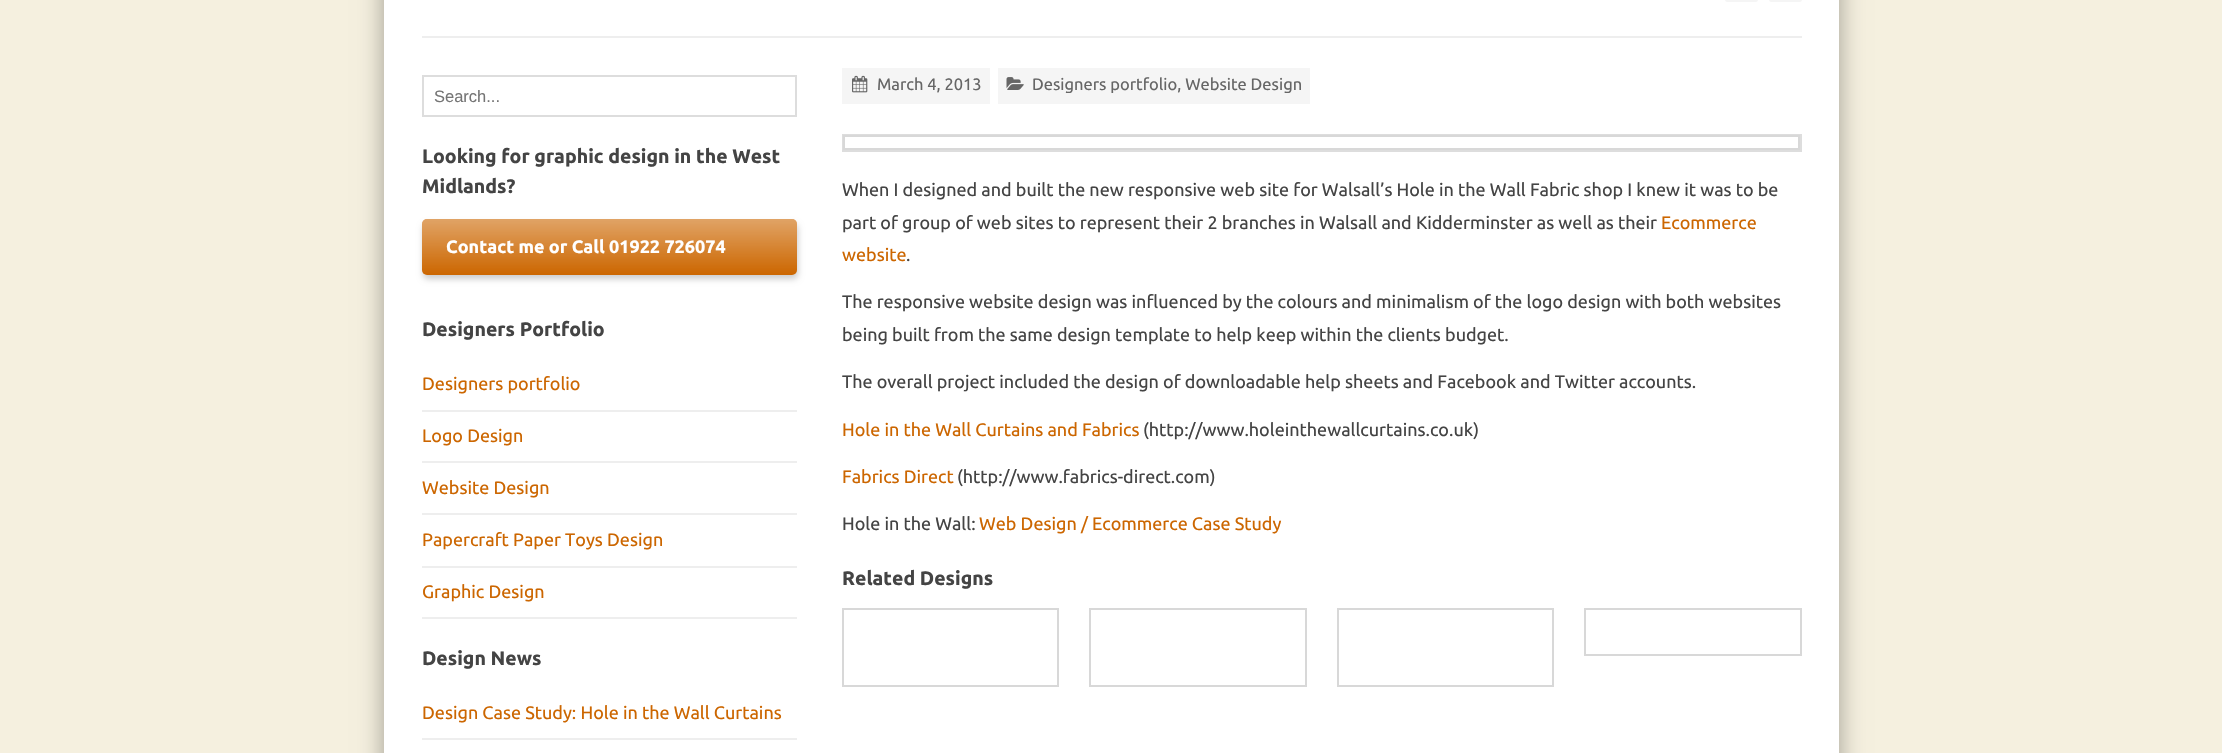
void draw(SkCanvas* canvas) {
  SkPaint paint;
  paint.setAntiAlias(true);
  auto face = [&](const char* family, int weight, float size, bool italic = false) {
    SkFontStyle style(weight, SkFontStyle::kNormal_Width,
      italic ? SkFontStyle::kItalic_Slant : SkFontStyle::kUpright_Slant);
    SkFont result(fontMgr->matchFamilyStyle(family, style), size);
    result.setSubpixel(true);
    return result;
  };
  auto paste = [&](const char* path, float x, float y, float w, float h) {
    auto image = SkImages::DeferredFromEncodedData(SkData::MakeFromFileName(path));
    canvas->drawImageRect(image, SkRect::MakeXYWH(x, y, w, h), SkSamplingOptions());
  };
  canvas->clear(0xfff5f0df);
  paint.setColor(0x59000000);
  paint.setMaskFilter(SkMaskFilter::MakeBlur(kNormal_SkBlurStyle, 12));
  canvas->drawRect(SkRect::MakeXYWH(384, -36, 1455, 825), paint);
  paint.setMaskFilter(nullptr);
  paint.setColor(0xffffffff);
  canvas->drawRect(SkRect::MakeXYWH(384, 0, 1455, 753), paint);
  paint.setColor(0xffeeeeee);
  canvas->drawRect(SkRect::MakeXYWH(422, 36, 1380, 2), paint);
  paint.setColor(0xfff5f5f5);
  canvas->drawRoundRect(SkRect::MakeXYWH(1725, -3, 33, 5), 3, 3, paint);
  canvas->drawRoundRect(SkRect::MakeXYWH(1769, -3, 33, 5), 3, 3, paint);
  paint.setStroke(true);
  paint.setStrokeWidth(2);
  paint.setColor(0xffdddddd);
  canvas->drawRect(SkRect::MakeXYWH(423, 76, 373, 40), paint);
  paint.setStroke(false);
  paint.setColor(0x33000000);
  paint.setMaskFilter(SkMaskFilter::MakeBlur(kNormal_SkBlurStyle, 3));
  canvas->drawRoundRect(SkRect::MakeXYWH(423, 224, 375, 55), 5, 5, paint);
  paint.setMaskFilter(nullptr);
  paint.setColor(0xffcc6600);
  canvas->drawRoundRect(SkRect::MakeXYWH(422, 219, 375, 56), 5, 5, paint);
  {
    const SkColor colors[] = {0x66ffffff, 0x00ffffff};
    const float stops[] = {0, 1};
    const SkPoint ends[] = {{609, 219}, {609, 275}};
    paint.setShader(SkGradientShader::MakeLinear(ends, colors, stops, 2, SkTileMode::kClamp));
    paint.setAlpha(255);
  }
  canvas->drawRoundRect(SkRect::MakeXYWH(422, 219, 375, 56), 5, 5, paint);
  paint.setShader(nullptr);
  {
    const struct { float x, y, w, h; SkColor color; } items[] = {
      {422, 410, 375, 2, 0xffeeeeee},
      {422, 461, 375, 2, 0xffeeeeee},
      {422, 513, 375, 2, 0xffeeeeee},
      {422, 566, 375, 2, 0xffeeeeee},
      {422, 617, 375, 2, 0xffeeeeee},
      {422, 738, 375, 2, 0xffeeeeee},
      {842, 68, 148, 36, 0xfff5f5f5},
    };
    for (auto [x, y, w, h, color] : items) {
      paint.setColor(color);
      canvas->drawRect(SkRect::MakeXYWH(x, y, w, h), paint);
    }
  }
  paste("img/1.png", 852, 75, 16, 18);
  canvas->drawRect(SkRect::MakeXYWH(998, 68, 312, 36), paint);
  paste("img/2.png", 1006, 77, 18, 13);
  paint.setStroke(true);
  paint.setColor(0xffdddddd);
  canvas->drawRect(SkRect::MakeXYWH(843, 135, 958, 16), paint);
  paint.setColor(0xffd8d8d8);
  canvas->drawRect(SkRect::MakeXYWH(844, 136, 955, 13), paint);
  canvas->drawRect(SkRect::MakeXYWH(843, 609, 215, 77), paint);
  canvas->drawRect(SkRect::MakeXYWH(1090, 609, 216, 77), paint);
  canvas->drawRect(SkRect::MakeXYWH(1338, 609, 215, 77), paint);
  canvas->drawRect(SkRect::MakeXYWH(1585, 609, 216, 46), paint);
  auto f0 = face("Liberation Sans", 400, 16.5f);
  paint.setStroke(false);
  paint.setColor(0xff757575);
  canvas->drawString("Search...", 434, 102, f0, paint);
  auto f1 = face("Ubuntu", 700, 19.5f);
  paint.setColor(0xff444444);
  canvas->drawString("Looking for graphic design in the West", 422, 163, f1, paint);
  canvas->drawString("Midlands?", 422, 193, f1, paint);
  auto f2 = face("Ubuntu", 700, 18);
  paint.setColor(0xffffffff);
  canvas->drawString("Contact me or Call 01922 726074", 446, 253, f2, paint);
  paint.setColor(0xff444444);
  canvas->drawString("Designers Portfolio", 422, 336, f1, paint);
  auto f3 = face("Ubuntu", 400, 18);
  paint.setColor(0xffcc6600);
  {
    const struct { const char* s; float x, y; } items[] = {
      {"Designers portfolio", 422, 390},
      {"Logo Design", 422, 442},
      {"Website Design", 422, 494},
      {"Papercraft Paper Toys Design", 422, 546},
      {"Graphic Design", 422, 598},
    };
    for (auto [s, x, y] : items) {
      canvas->drawString(s, x, y, f3, paint);
    }
  }
  paint.setColor(0xff444444);
  canvas->drawString("Design News", 422, 665, f1, paint);
  paint.setColor(0xffcc6600);
  canvas->drawString("Design Case Study: Hole in the Wall Curtains", 422, 719, f3, paint);
  auto f4 = face("Ubuntu", 400, 16.5f);
  paint.setColor(0xff666666);
  canvas->drawString("March 4, 2013", 877, 90, f4, paint);
  canvas->drawString("Designers portfolio, Website Design", 1032, 90, f4, paint);
  paint.setColor(0xff444444);
  canvas->drawString("When I designed and built the new responsive web site for Walsall’s Hole in the Wall Fabric shop I knew it was to be", 842, 196, f3, paint);
  canvas->drawString("part of group of web sites to represent their 2 branches in Walsall and Kidderminster as well as their", 842, 229, f3, paint);
  paint.setColor(0xffcc6600);
  canvas->drawString("Ecommerce", 1661, 229, f3, paint);
  canvas->drawString("website", 842, 261, f3, paint);
  paint.setColor(0xff444444);
  {
    const struct { const char* s; float x, y; } items[] = {
      {".", 906, 261},
      {"The responsive website design was influenced by the colours and minimalism of the logo design with both websites", 842, 308},
      {"being built from the same design template to help keep within the clients budget.", 842, 341},
      {"The overall project included the design of downloadable help sheets and Facebook and Twitter accounts.", 842, 388},
    };
    for (auto [s, x, y] : items) {
      canvas->drawString(s, x, y, f3, paint);
    }
  }
  paint.setColor(0xffcc6600);
  canvas->drawString("Hole in the Wall Curtains and Fabrics", 842, 436, f3, paint);
  paint.setColor(0xff444444);
  canvas->drawString("(http://www.holeinthewallcurtains.co.uk)", 1143, 436, f3, paint);
  paint.setColor(0xffcc6600);
  canvas->drawString("Fabrics Direct", 842, 483, f3, paint);
  paint.setColor(0xff444444);
  canvas->drawString("(http://www.fabrics-direct.com)", 957, 483, f3, paint);
  canvas->drawString("Hole in the Wall:", 842, 530, f3, paint);
  paint.setColor(0xffcc6600);
  canvas->drawString("Web Design / Ecommerce Case Study", 979, 530, f3, paint);
  paint.setColor(0xff444444);
  canvas->drawString("Related Designs", 842, 585, f1, paint);
}
